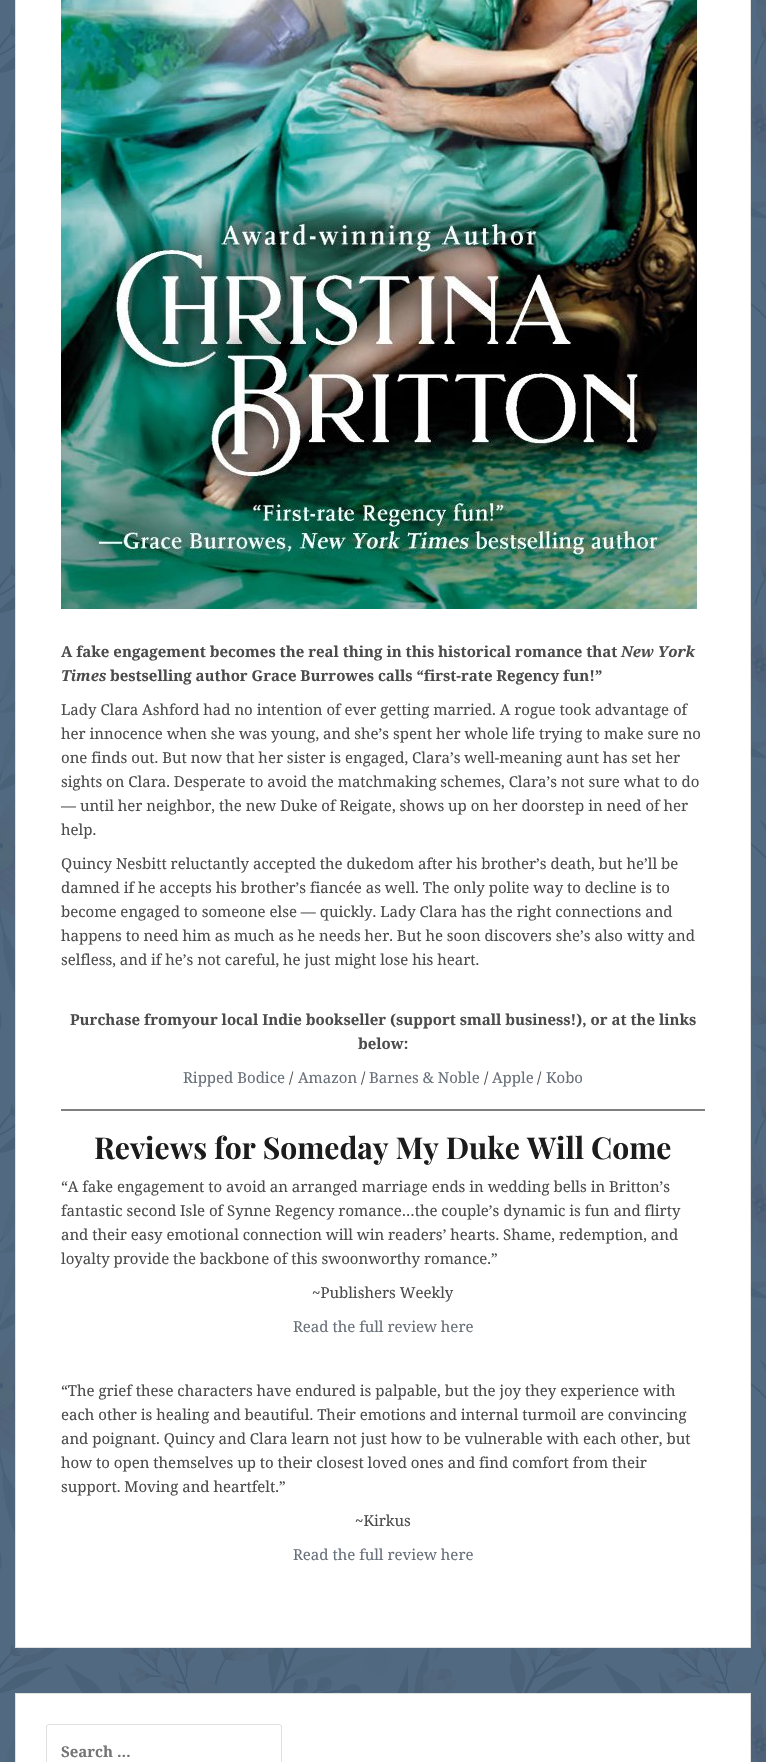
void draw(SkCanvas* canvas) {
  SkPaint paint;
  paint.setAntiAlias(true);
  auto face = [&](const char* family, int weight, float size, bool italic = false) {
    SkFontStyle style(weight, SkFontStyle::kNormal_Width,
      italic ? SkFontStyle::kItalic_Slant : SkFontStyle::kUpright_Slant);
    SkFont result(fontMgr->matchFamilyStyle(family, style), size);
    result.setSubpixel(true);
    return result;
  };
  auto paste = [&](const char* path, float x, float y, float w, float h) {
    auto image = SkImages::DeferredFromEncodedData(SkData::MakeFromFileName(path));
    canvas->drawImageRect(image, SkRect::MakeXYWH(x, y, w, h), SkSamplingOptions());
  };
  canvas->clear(0xffffffff);
  paste("img/1.png", 0, 0, 766, 1762);
  paint.setColor(0xffffffff);
  canvas->drawRect(SkRect::MakeXYWH(15.5f, -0.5f, 735, 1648), paint);
  paint.setStroke(true);
  paint.setStrokeWidth(1);
  paint.setColor(0xffe0e0e0);
  canvas->drawRect(SkRect::MakeXYWH(15.5f, -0.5f, 735, 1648), paint);
  paste("img/2.png", 61, 0, 636, 609);
  paint.setStroke(false);
  paint.setColor(0xff808080);
  canvas->drawRect(SkRect::MakeXYWH(61, 1109, 644, 2), paint);
  paint.setColor(0xffffffff);
  canvas->drawRect(SkRect::MakeXYWH(15.5f, 1693.5f, 735, 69), paint);
  paint.setStroke(true);
  paint.setColor(0xffe0e0e0);
  canvas->drawRect(SkRect::MakeXYWH(15.5f, 1693.5f, 735, 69), paint);
  canvas->drawRoundRect(SkRect::MakeXYWH(46.5f, 1724.5f, 235, 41), 2.5f, 2.5f, paint);
  auto f0 = face("Noto Serif", 700, 15);
  paint.setStroke(false);
  paint.setColor(0xff4c4c4c);
  canvas->drawString("A fake engagement becomes the real thing in this historical romance that", 61, 657, f0, paint);
  auto f1 = face("Noto Serif", 700, 15, true);
  canvas->drawString("New York", 621, 657, f1, paint);
  canvas->drawString("Times", 61, 681, f1, paint);
  canvas->drawString("bestselling author Grace Burrowes calls “first-rate Regency fun!”", 110, 681, f0, paint);
  auto f2 = face("Noto Serif", 400, 15);
  {
    const struct { const char* s; float x, y; } items[] = {
      {"Lady Clara Ashford had no intention of ever getting married. A rogue took advantage of", 61, 715},
      {"her innocence when she was young, and she’s spent her whole life trying to make sure no", 61, 739},
      {"one finds out. But now that her sister is engaged, Clara’s well-meaning aunt has set her", 61, 763},
      {"sights on Clara. Desperate to avoid the matchmaking schemes, Clara’s not sure what to do", 61, 787},
      {"— until her neighbor, the new Duke of Reigate, shows up on her doorstep in need of her", 61, 811},
      {"help.", 61, 835},
      {"Quincy Nesbitt reluctantly accepted the dukedom after his brother’s death, but he’ll be", 61, 869},
      {"damned if he accepts his brother’s fiancée as well. The only polite way to decline is to", 61, 893},
      {"become engaged to someone else — quickly. Lady Clara has the right connections and", 61, 917},
      {"happens to need him as much as he needs her. But he soon discovers she’s also witty and", 61, 941},
      {"selfless, and if he’s not careful, he just might lose his heart.", 61, 965},
    };
    for (auto [s, x, y] : items) {
      canvas->drawString(s, x, y, f2, paint);
    }
  }
  canvas->drawString("Purchase fromyour local Indie bookseller (support small business!), or at the links", 70, 1025, f0, paint);
  canvas->drawString("below:", 358, 1049, f0, paint);
  paint.setColor(0xff68707a);
  canvas->drawString("Ripped Bodice", 183, 1083, f2, paint);
  paint.setColor(0xff4c4c4c);
  canvas->drawString("/", 289, 1083, f2, paint);
  paint.setColor(0xff68707a);
  canvas->drawString("Amazon", 298, 1083, f2, paint);
  paint.setColor(0xff4c4c4c);
  canvas->drawString("/", 361, 1083, f2, paint);
  paint.setColor(0xff68707a);
  canvas->drawString("Barnes & Noble", 369, 1083, f2, paint);
  paint.setColor(0xff4c4c4c);
  canvas->drawString("/", 484, 1083, f2, paint);
  paint.setColor(0xff68707a);
  canvas->drawString("Apple", 492, 1083, f2, paint);
  paint.setColor(0xff4c4c4c);
  canvas->drawString("/", 537, 1083, f2, paint);
  paint.setColor(0xff68707a);
  canvas->drawString("Kobo", 546, 1083, f2, paint);
  auto f3 = face("Playfair Display", 700, 30);
  paint.setColor(0xff1c1c1c);
  canvas->drawString("Reviews for Someday My Duke Will Come", 94, 1159, f3, paint);
  paint.setColor(0xff4c4c4c);
  {
    const struct { const char* s; float x, y; } items[] = {
      {"“A fake engagement to avoid an arranged marriage ends in wedding bells in Britton’s", 61, 1192},
      {"fantastic second Isle of Synne Regency romance…the couple’s dynamic is fun and flirty", 61, 1216},
      {"and their easy emotional connection will win readers’ hearts. Shame, redemption, and", 61, 1240},
      {"loyalty provide the backbone of this swoonworthy romance.”", 61, 1264},
      {"~Publishers Weekly", 312, 1298},
    };
    for (auto [s, x, y] : items) {
      canvas->drawString(s, x, y, f2, paint);
    }
  }
  paint.setColor(0xff68707a);
  canvas->drawString("Read the full review here", 293, 1332, f2, paint);
  paint.setColor(0xff4c4c4c);
  {
    const struct { const char* s; float x, y; } items[] = {
      {"“The grief these characters have endured is palpable, but the joy they experience with", 61, 1396},
      {"each other is healing and beautiful. Their emotions and internal turmoil are convincing", 61, 1420},
      {"and poignant. Quincy and Clara learn not just how to be vulnerable with each other, but", 61, 1444},
      {"how to open themselves up to their closest loved ones and find comfort from their", 61, 1468},
      {"support. Moving and heartfelt.”", 61, 1492},
      {"~Kirkus", 355, 1526},
    };
    for (auto [s, x, y] : items) {
      canvas->drawString(s, x, y, f2, paint);
    }
  }
  paint.setColor(0xff68707a);
  canvas->drawString("Read the full review here", 293, 1560, f2, paint);
  paint.setColor(0xff757575);
  canvas->drawString("Search …", 61, 1757, f0, paint);
}
